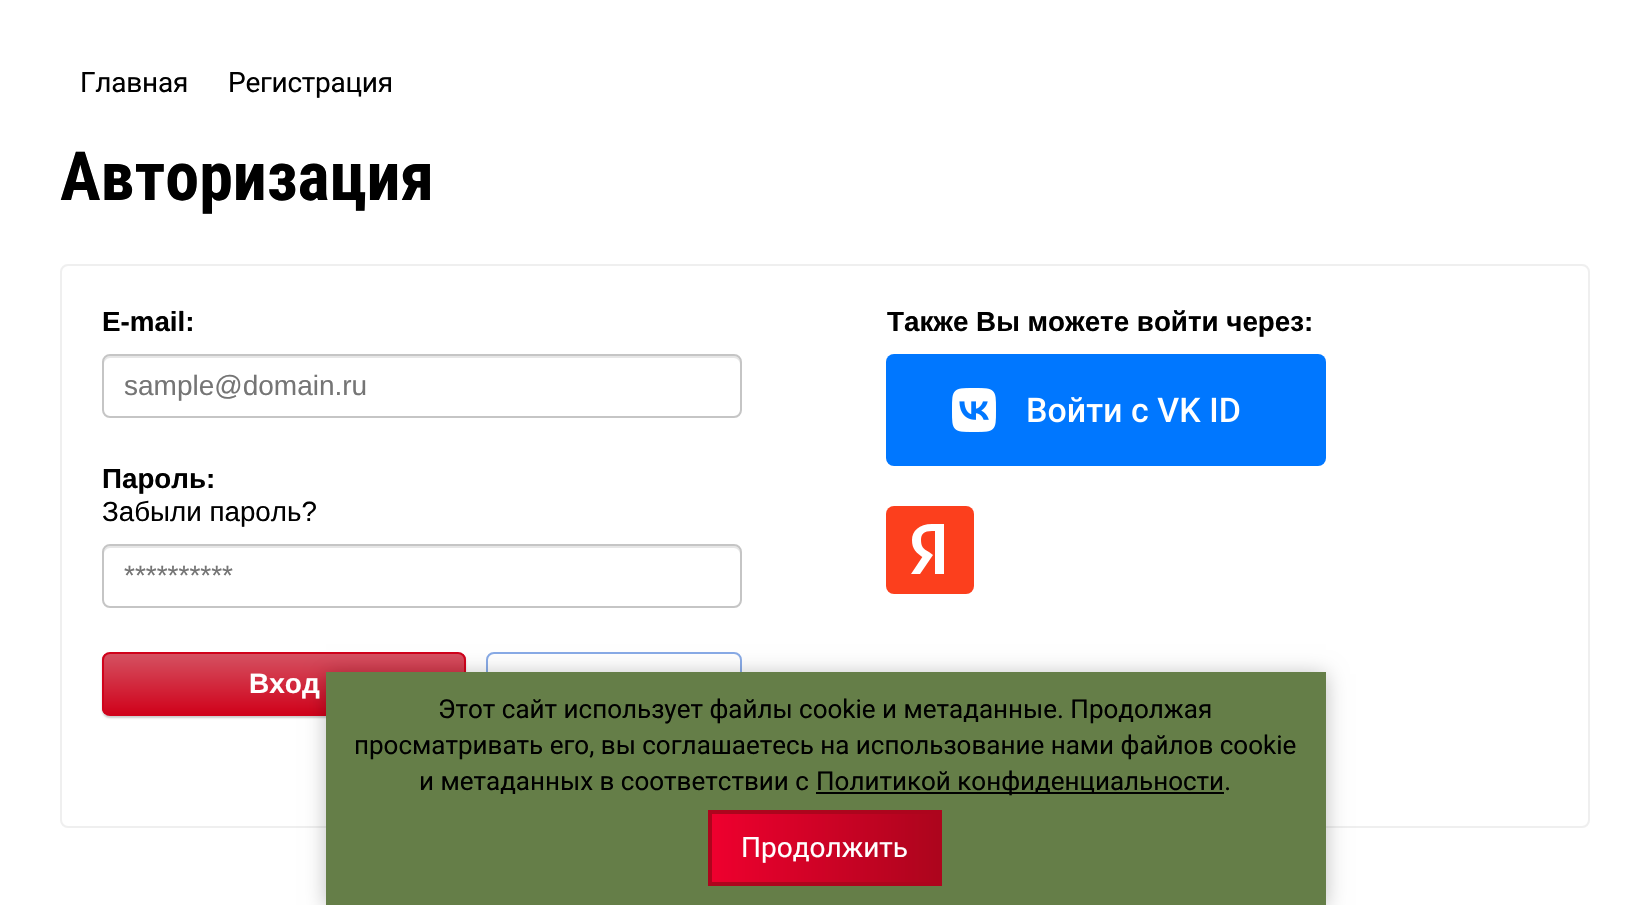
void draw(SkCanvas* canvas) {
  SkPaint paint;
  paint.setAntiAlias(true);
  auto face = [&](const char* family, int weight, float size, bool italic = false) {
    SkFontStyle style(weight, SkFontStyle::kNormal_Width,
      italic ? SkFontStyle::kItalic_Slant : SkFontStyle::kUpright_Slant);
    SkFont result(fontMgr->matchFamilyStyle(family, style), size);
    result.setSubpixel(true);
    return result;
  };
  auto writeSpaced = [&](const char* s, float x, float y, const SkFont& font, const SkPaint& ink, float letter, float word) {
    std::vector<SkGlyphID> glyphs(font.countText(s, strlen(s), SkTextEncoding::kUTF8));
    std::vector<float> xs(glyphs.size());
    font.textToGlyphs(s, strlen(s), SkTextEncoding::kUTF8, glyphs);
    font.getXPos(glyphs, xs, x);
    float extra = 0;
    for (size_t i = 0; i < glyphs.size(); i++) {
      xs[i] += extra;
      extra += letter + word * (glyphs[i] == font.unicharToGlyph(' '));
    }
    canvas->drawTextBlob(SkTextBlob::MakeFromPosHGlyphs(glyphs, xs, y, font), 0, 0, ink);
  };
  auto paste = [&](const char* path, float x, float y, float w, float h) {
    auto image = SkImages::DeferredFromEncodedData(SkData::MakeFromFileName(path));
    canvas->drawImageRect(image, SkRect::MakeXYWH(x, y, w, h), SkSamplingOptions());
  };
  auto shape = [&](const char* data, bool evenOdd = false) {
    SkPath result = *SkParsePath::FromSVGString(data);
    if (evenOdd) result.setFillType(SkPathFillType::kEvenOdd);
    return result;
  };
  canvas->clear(0xffffffff);
  paint.setStroke(true);
  paint.setStrokeWidth(2);
  paint.setColor(0xffefefef);
  canvas->drawRoundRect(SkRect::MakeXYWH(61, 265, 1528, 562), 7, 7, paint);
  paint.setStroke(false);
  paint.setColor(0xffe6e6e6);
  canvas->drawPath(shape("M110 358H734C737 358 740 361 740 364V362C740 359 737 356 734 356H110C107 356 104 359 104 362V364C104 361 107 358 110 358Z"), paint);
  paint.setStroke(true);
  paint.setColor(0xffc5c5c5);
  canvas->drawRoundRect(SkRect::MakeXYWH(103, 355, 638, 62), 7, 7, paint);
  paint.setStroke(false);
  paint.setColor(0xffe6e6e6);
  canvas->drawPath(shape("M110 548H734C737 548 740 551 740 554V552C740 549 737 546 734 546H110C107 546 104 549 104 552V554C104 551 107 548 110 548Z"), paint);
  paint.setStroke(true);
  paint.setColor(0xffc5c5c5);
  canvas->drawRoundRect(SkRect::MakeXYWH(103, 545, 638, 62), 7, 7, paint);
  paint.setStroke(false);
  paint.setColor(0x33000000);
  paint.setMaskFilter(SkMaskFilter::MakeBlur(kNormal_SkBlurStyle, 1));
  canvas->drawRoundRect(SkRect::MakeXYWH(102, 654, 364, 64), 8, 8, paint);
  paint.setMaskFilter(nullptr);
  canvas->save();
  canvas->clipPath(shape("M110 652H458C462.5 652 466 655.5 466 660V708C466 712.5 462.5 716 458 716H110C105.5 716 102 712.5 102 708V660C102 655.5 105.5 652 110 652Z"), true);
  {
    const SkColor colors[] = {0xffd45161, 0xffd0021b};
    const float stops[] = {0, 1};
    const SkPoint ends[] = {{284, 654}, {284, 714}};
    paint.setShader(SkGradientShader::MakeLinear(ends, colors, stops, 2, SkTileMode::kClamp));
    paint.setAlpha(255);
  }
  canvas->drawRect(SkRect::MakeXYWH(102, 654, 364, 60), paint);
  canvas->restore();
  paint.setStroke(true);
  paint.setShader(nullptr);
  paint.setColor(0xffd0021b);
  canvas->drawRoundRect(SkRect::MakeXYWH(103, 653, 362, 62), 7, 7, paint);
  paint.setColor(0xff88aae6);
  canvas->drawRoundRect(SkRect::MakeXYWH(487, 653, 254, 62), 7, 7, paint);
  paint.setStroke(false);
  paint.setColor(0xff0077ff);
  canvas->drawRoundRect(SkRect::MakeXYWH(886, 354, 440, 112), 8, 8, paint);
  paste("img/1.png", 952, 388, 288, 44);
  paint.setColor(0xfffc3f1d);
  canvas->drawRoundRect(SkRect::MakeXYWH(886, 506, 88, 88), 8, 8, paint);
  paint.setColor(0xffffffff);
  canvas->drawPath(shape("M935 574H944V524H932C919 524 912 531 912 540C912 549 916 553 924 558L929 561L923 556L911 574H920L933 555L929 552C923 549 921 546 921 540C921 534 924 531 932 531H935Z"), paint);
  paint.setColor(0x40000000);
  paint.setMaskFilter(SkMaskFilter::MakeBlur(kNormal_SkBlurStyle, 10));
  canvas->drawRect(SkRect::MakeXYWH(326, 674, 1000, 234), paint);
  paint.setMaskFilter(nullptr);
  paint.setColor(0xff657e48);
  canvas->drawRect(SkRect::MakeXYWH(326, 672, 1000, 233), paint);
  paint.setColor(0xff000000);
  canvas->drawRect(SkRect::MakeXYWH(816, 792, 408, 2), paint);
  {
    const SkColor colors[] = {0xffad051d, 0xffee002e};
    const float stops[] = {0, 1};
    const SkPoint ends[] = {{938, 848}, {712, 848}};
    paint.setShader(SkGradientShader::MakeLinear(ends, colors, stops, 2, SkTileMode::kClamp));
    paint.setAlpha(255);
  }
  canvas->drawRect(SkRect::MakeXYWH(712, 814, 226, 68), paint);
  paint.setStroke(true);
  paint.setStrokeWidth(4);
  paint.setShader(nullptr);
  paint.setColor(0xffad051d);
  canvas->drawRect(SkRect::MakeXYWH(710, 812, 230, 72), paint);
  auto f0 = face("Roboto", 400, 28);
  paint.setStroke(false);
  paint.setColor(0xff000000);
  writeSpaced("Главная", 80, 92, f0, paint, -0.25f, 0);
  writeSpaced("Регистрация", 228, 92, f0, paint, -0.25f, 0);
  auto f1 = face("Roboto Condensed", 700, 68);
  canvas->drawString("Авторизация", 60, 200, f1, paint);
  auto f2 = face("Liberation Sans", 700, 27.75f);
  canvas->drawString("E-mail:", 102, 331, f2, paint);
  auto f3 = face("Liberation Sans", 400, 28);
  paint.setColor(0xff757575);
  canvas->drawString("sample@domain.ru", 124, 395, f3, paint);
  paint.setColor(0xff000000);
  canvas->drawString("Пароль:", 102, 488, f2, paint);
  auto f4 = face("Liberation Sans", 400, 27.75f);
  canvas->drawString("Забыли пароль?", 102, 521, f4, paint);
  paint.setColor(0xff757575);
  canvas->drawString("**********", 124, 585, f3, paint);
  auto f5 = face("Liberation Sans", 700, 28);
  paint.setColor(0xffffffff);
  canvas->drawString("Вход", 249, 693, f5, paint);
  paint.setColor(0xff000000);
  canvas->drawString("Также Вы можете войти через:", 887, 331, f2, paint);
  auto f6 = face("Roboto", 400, 26);
  {
    const struct { const char* s; float x, y; } items[] = {
      {"Этот сайт использует файлы cookie и метаданные. Продолжая", 438, 718},
      {"просматривать его, вы соглашаетесь на использование нами файлов cookie", 354, 754},
      {"и метаданных в соответствии с", 419, 790},
      {"Политикой конфиденциальности.", 816, 790},
    };
    for (auto [s, x, y] : items) {
      canvas->drawString(s, x, y, f6, paint);
    }
  }
  paint.setColor(0xffffffff);
  canvas->drawString("Продолжить", 741, 857, f0, paint);
}
